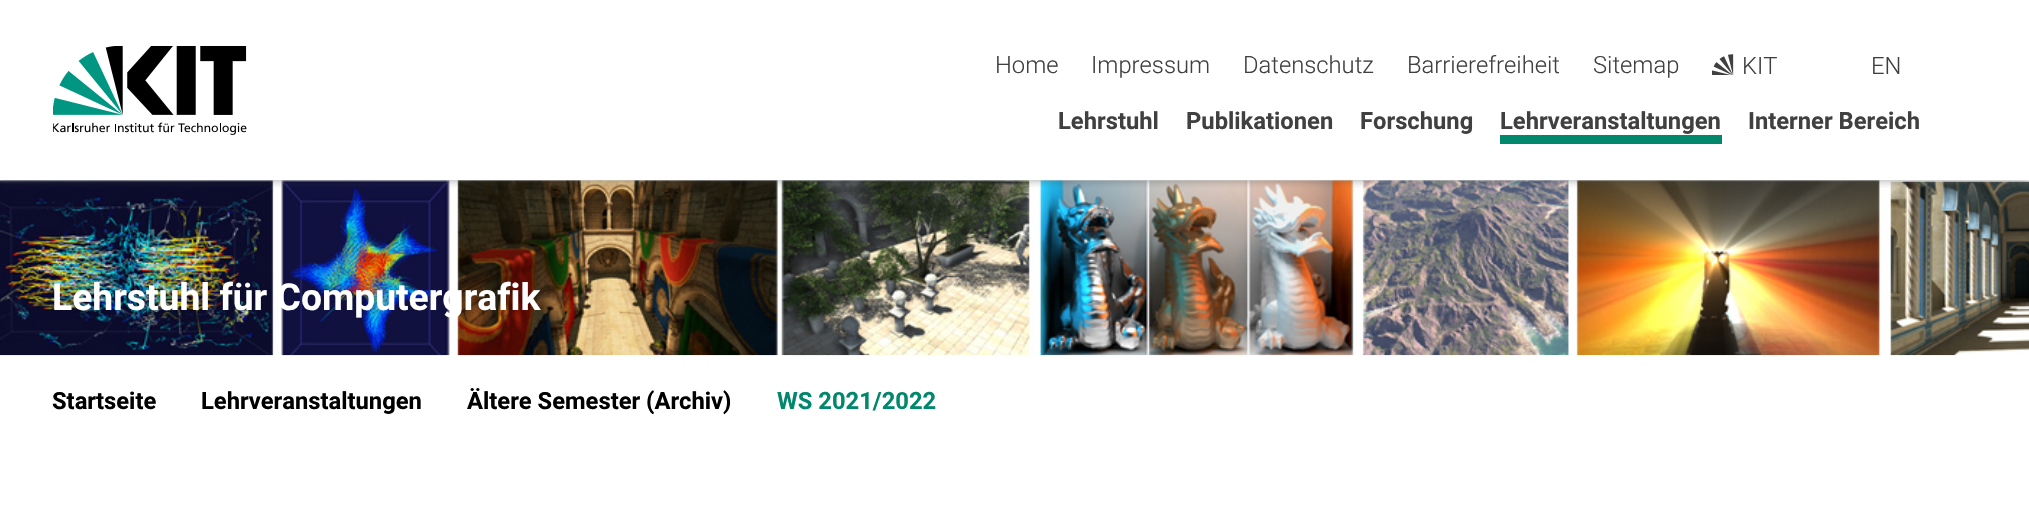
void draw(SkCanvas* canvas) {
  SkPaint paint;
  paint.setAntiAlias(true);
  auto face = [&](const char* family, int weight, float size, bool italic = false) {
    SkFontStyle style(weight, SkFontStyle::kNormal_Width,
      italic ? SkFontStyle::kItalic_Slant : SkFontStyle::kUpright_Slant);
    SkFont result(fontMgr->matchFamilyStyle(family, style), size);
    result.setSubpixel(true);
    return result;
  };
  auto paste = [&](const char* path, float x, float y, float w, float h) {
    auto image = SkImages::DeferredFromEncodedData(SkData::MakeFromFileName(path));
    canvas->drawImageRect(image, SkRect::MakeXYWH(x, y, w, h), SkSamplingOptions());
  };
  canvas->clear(0xffffffff);
  paste("img/3.png", 0, 180, 2029, 176);
  canvas->save();
  canvas->clipRect(SkRect::MakeXYWH(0, 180, 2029, 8));
  paint.setColor(0x80404040);
  paint.setMaskFilter(SkMaskFilter::MakeBlur(kNormal_SkBlurStyle, 4.5f));
  canvas->drawRect(SkRect::MakeXYWH(0, 0, 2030, 180), paint);
  paint.setMaskFilter(nullptr);
  canvas->restore();
  paste("img/1.png", 53, 46, 194, 89);
  paste("img/2.png", 1712, 54, 22, 21);
  paint.setColor(0xff00876c);
  canvas->drawRect(SkRect::MakeXYWH(1500, 135, 222, 9), paint);
  auto f0 = face("Roboto", 300, 23.75f);
  paint.setColor(0xff404040);
  {
    const struct { const char* s; float x, y; } items[] = {
      {"Home", 995, 73},
      {"Impressum", 1091, 73},
      {"Datenschutz", 1243, 73},
      {"Barrierefreiheit", 1407, 73},
      {"Sitemap", 1593, 73},
      {"KIT", 1742, 74},
      {"EN", 1871, 74},
    };
    for (auto [s, x, y] : items) {
      canvas->drawString(s, x, y, f0, paint);
    }
  }
  auto f1 = face("Roboto", 700, 23.75f);
  {
    const struct { const char* s; float x, y; } items[] = {
      {"Lehrstuhl", 1058, 129},
      {"Publikationen", 1186, 129},
      {"Forschung", 1360, 129},
      {"Lehrveranstaltungen", 1500, 129},
      {"Interner Bereich", 1748, 129},
    };
    for (auto [s, x, y] : items) {
      canvas->drawString(s, x, y, f1, paint);
    }
  }
  auto f2 = face("Roboto", 700, 37.25f);
  paint.setColor(0xffffffff);
  canvas->drawString("Lehrstuhl für Computergrafik", 52, 310, f2, paint);
  paint.setColor(0xff000000);
  {
    const struct { const char* s; float x, y; } items[] = {
      {"Startseite", 52, 409},
      {"Lehrveranstaltungen", 201, 409},
      {"Ältere Semester (Archiv)", 467, 409},
    };
    for (auto [s, x, y] : items) {
      canvas->drawString(s, x, y, f1, paint);
    }
  }
  paint.setColor(0xff00876c);
  canvas->drawString("WS 2021/2022", 777, 409, f1, paint);
}
